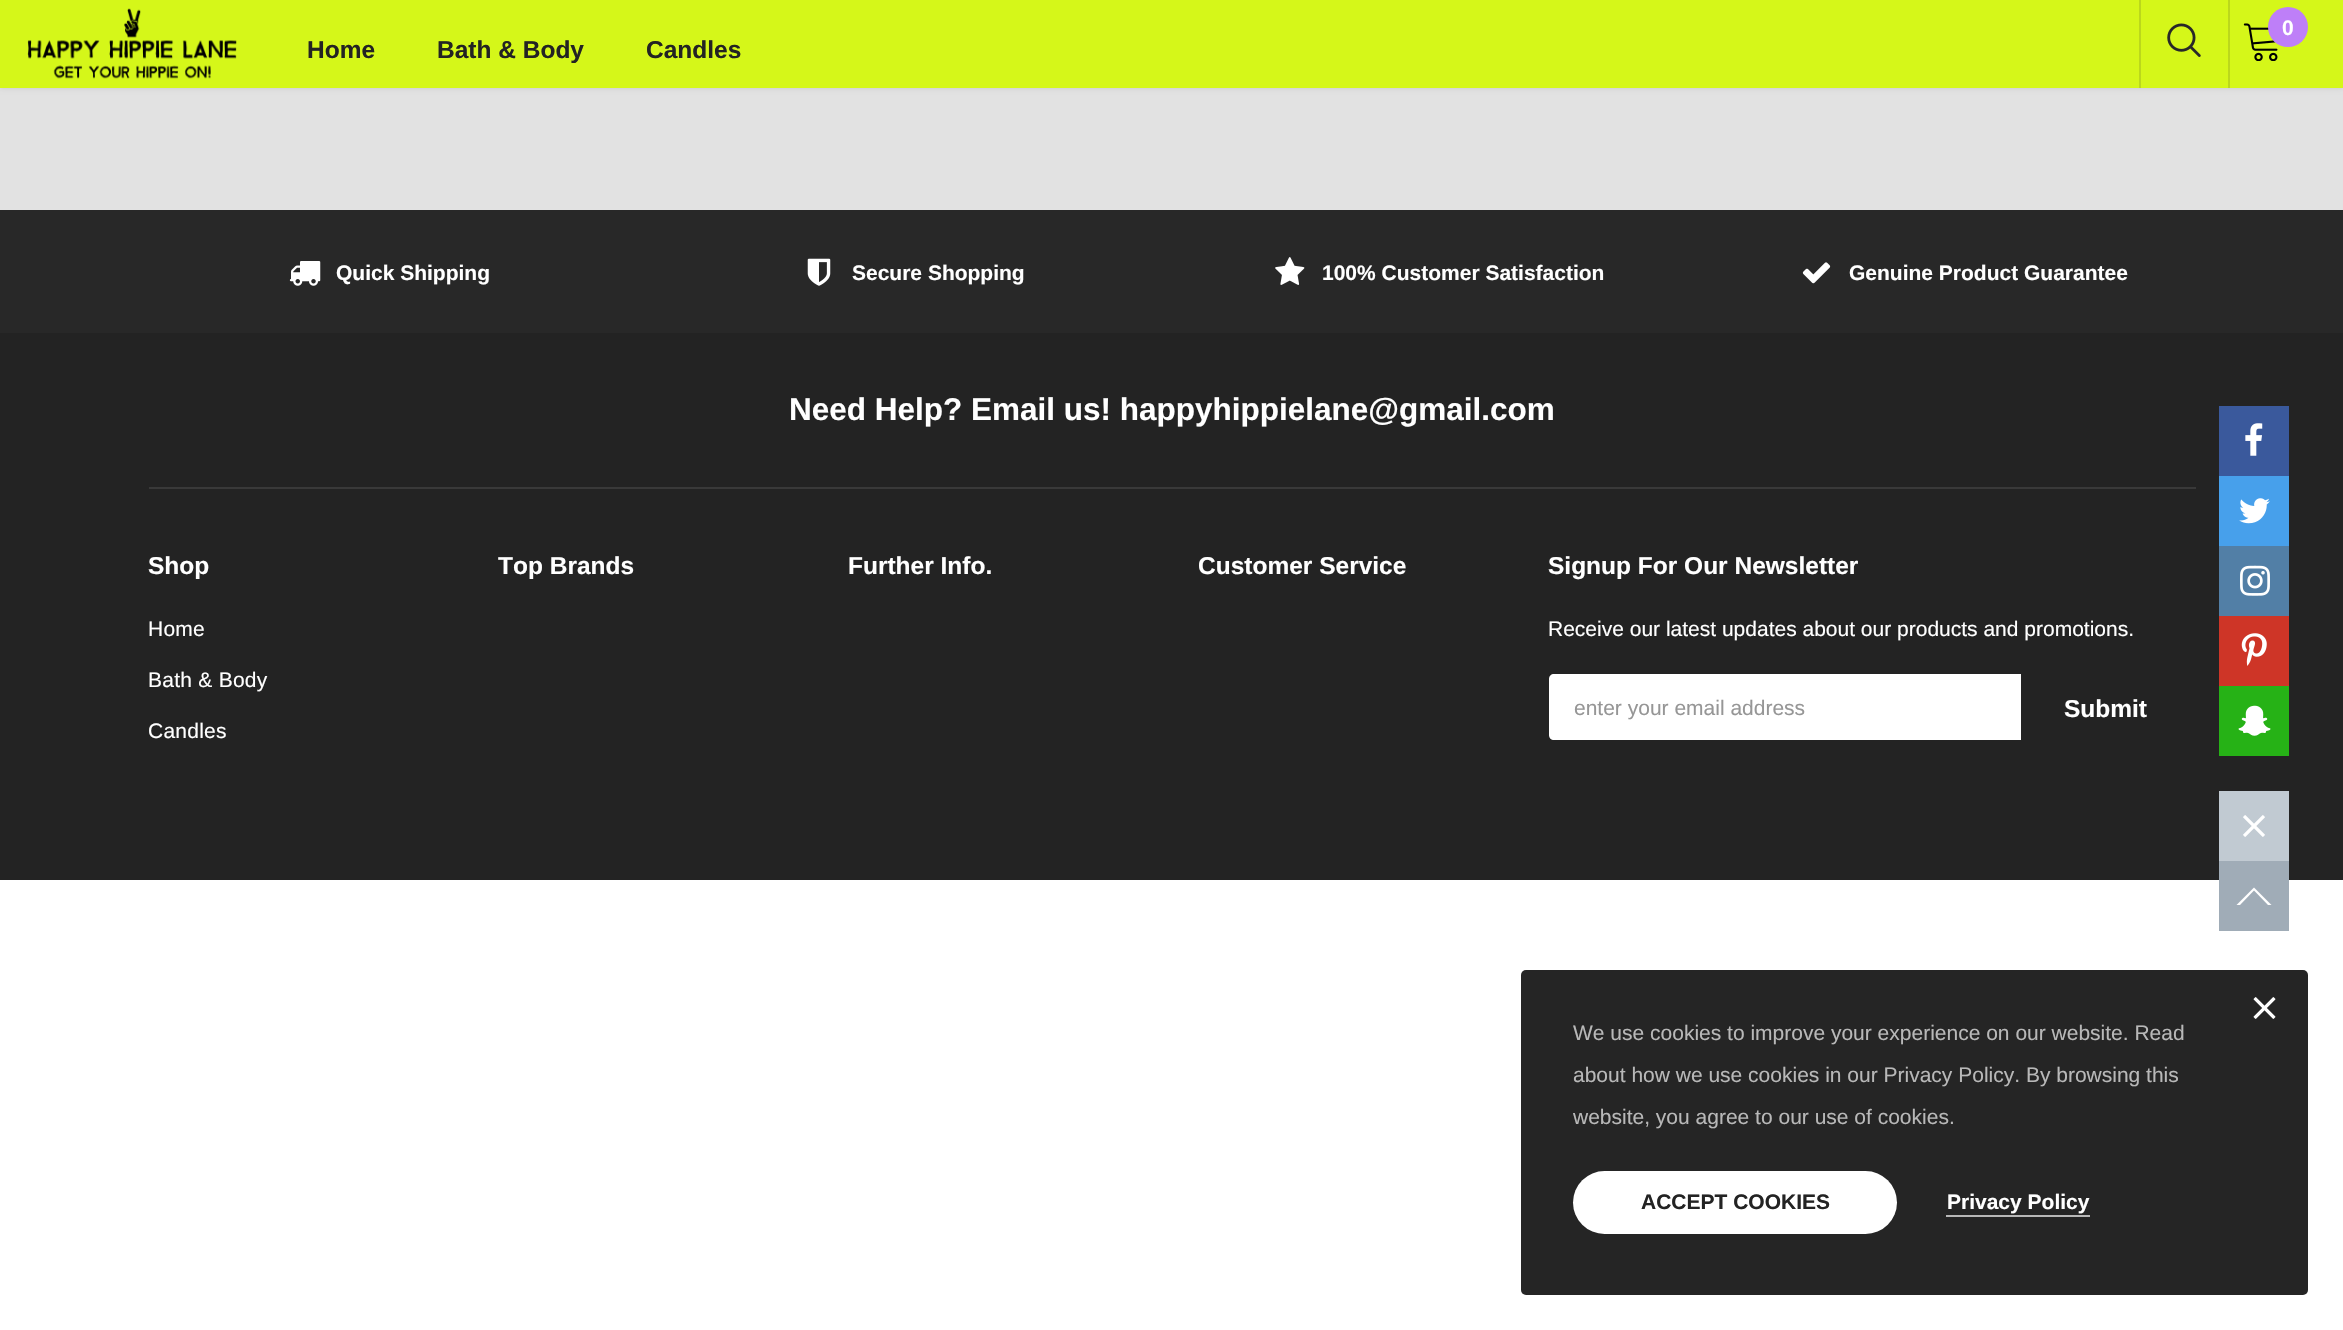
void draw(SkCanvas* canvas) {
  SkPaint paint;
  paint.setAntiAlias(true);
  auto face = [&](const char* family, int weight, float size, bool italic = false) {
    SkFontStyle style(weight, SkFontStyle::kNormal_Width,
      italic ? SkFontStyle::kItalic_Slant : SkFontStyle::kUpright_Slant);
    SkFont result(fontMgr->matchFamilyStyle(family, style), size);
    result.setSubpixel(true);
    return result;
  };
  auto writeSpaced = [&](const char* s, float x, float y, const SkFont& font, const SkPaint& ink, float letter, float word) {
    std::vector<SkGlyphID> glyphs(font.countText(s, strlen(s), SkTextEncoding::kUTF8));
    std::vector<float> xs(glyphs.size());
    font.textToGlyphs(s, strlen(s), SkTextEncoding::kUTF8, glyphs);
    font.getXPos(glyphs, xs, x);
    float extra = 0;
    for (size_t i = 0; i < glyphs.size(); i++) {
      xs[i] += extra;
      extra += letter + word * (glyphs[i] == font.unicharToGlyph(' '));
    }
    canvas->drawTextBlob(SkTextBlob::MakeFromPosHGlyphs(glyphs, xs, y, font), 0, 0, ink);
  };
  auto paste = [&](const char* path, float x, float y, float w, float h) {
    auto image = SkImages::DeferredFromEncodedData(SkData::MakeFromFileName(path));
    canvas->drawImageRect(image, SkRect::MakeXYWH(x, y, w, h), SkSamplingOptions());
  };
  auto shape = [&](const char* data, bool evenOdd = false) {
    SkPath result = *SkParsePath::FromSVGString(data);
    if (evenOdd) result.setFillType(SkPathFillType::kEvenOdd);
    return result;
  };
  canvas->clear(0xffffffff);
  paint.setColor(0xffe2e2e2);
  canvas->drawRect(SkRect::MakeXYWH(0, 88, 2343, 122), paint);
  paint.setColor(0x1f000000);
  paint.setMaskFilter(SkMaskFilter::MakeBlur(kNormal_SkBlurStyle, 2.5f));
  canvas->drawRect(SkRect::MakeXYWH(0, 0, 2343, 88), paint);
  paint.setMaskFilter(nullptr);
  paint.setColor(0xffd5f719);
  canvas->drawRect(SkRect::MakeXYWH(0, 0, 2343, 88), paint);
  paste("img/1.png", 2243, 23, 35, 38);
  paint.setColor(0xffbe7ff8);
  canvas->drawCircle(2288, 27, 20, paint);
  paste("img/2.png", 27, 8, 210, 71);
  paint.setColor(0xffbbd81b);
  canvas->drawRect(SkRect::MakeXYWH(2139, 0, 2, 88), paint);
  paste("img/3.png", 2167, 23, 34, 34);
  canvas->drawRect(SkRect::MakeXYWH(2228, 0, 2, 88), paint);
  paint.setColor(0xff282828);
  canvas->drawRect(SkRect::MakeXYWH(0, 210, 2343, 123), paint);
  paste("img/4.png", 289, 261, 32, 25);
  paste("img/5.png", 807, 258, 24, 28);
  paste("img/6.png", 1275, 257, 30, 28);
  paste("img/7.png", 1802, 262, 29, 22);
  paint.setColor(0xff232323);
  canvas->drawRect(SkRect::MakeXYWH(0, 333, 2343, 547), paint);
  paint.setColor(0xff393939);
  canvas->drawRect(SkRect::MakeXYWH(149, 487, 2047, 2), paint);
  paint.setColor(0xffffffff);
  canvas->drawPath(shape("M1554 674H2021V740H1554C1551 740 1549 738 1549 735V679C1549 676 1551 674 1554 674Z"), paint);
  paint.setColor(0xff3a599c);
  canvas->drawRect(SkRect::MakeXYWH(2219, 406, 70, 70), paint);
  paste("img/8.png", 2245, 423, 18, 33);
  paint.setColor(0xff47a0eb);
  canvas->drawRect(SkRect::MakeXYWH(2219, 476, 70, 70), paint);
  paste("img/9.png", 2239, 498, 31, 26);
  paint.setColor(0xff527fa6);
  canvas->drawRect(SkRect::MakeXYWH(2219, 546, 70, 70), paint);
  paste("img/10.png", 2240, 565, 30, 31);
  paint.setColor(0xffce3527);
  canvas->drawRect(SkRect::MakeXYWH(2219, 616, 70, 70), paint);
  paste("img/11.png", 2241, 633, 26, 33);
  paint.setColor(0xff26b216);
  canvas->drawRect(SkRect::MakeXYWH(2219, 686, 70, 70), paint);
  paste("img/12.png", 2238, 705, 33, 31);
  paint.setColor(0xffc1cad2);
  canvas->drawRect(SkRect::MakeXYWH(2219, 791, 70, 70), paint);
  paste("img/13.png", 2243, 815, 22, 22);
  paint.setColor(0xffa0acb7);
  canvas->drawRect(SkRect::MakeXYWH(2219, 861, 70, 70), paint);
  paint.setColor(0xffffffff);
  canvas->drawPath(shape("M2254 890.5L2268 905H2271.5L2254 887.5L2236.5 905H2240Z"), paint);
  paint.setColor(0xff252525);
  canvas->drawRoundRect(SkRect::MakeXYWH(1521, 970, 787, 325), 5, 5, paint);
  paste("img/14.png", 2253, 997, 23, 22);
  paint.setColor(0xffffffff);
  canvas->drawRoundRect(SkRect::MakeXYWH(1573, 1171, 324, 63), 31.5f, 31.5f, paint);
  paint.setColor(0xffb8b8b8);
  canvas->drawRect(SkRect::MakeXYWH(1946, 1215, 144, 2), paint);
  auto f0 = face("Arimo", 700, 21);
  paint.setColor(0xffffffff);
  canvas->drawString("0", 2282, 35, f0, paint);
  auto f1 = face("Arimo", 700, 24.5f);
  paint.setColor(0xff232323);
  {
    const struct { const char* s; float x, y; } items[] = {
      {"Home", 307, 58},
      {"Bath & Body", 437, 58},
      {"Candles", 646, 58},
    };
    for (auto [s, x, y] : items) {
      canvas->drawString(s, x, y, f1, paint);
    }
  }
  paint.setColor(0xffffffff);
  {
    const struct { const char* s; float x, y; } items[] = {
      {"Quick Shipping", 336, 280},
      {"Secure Shopping", 852, 280},
      {"100% Customer Satisfaction", 1322, 280},
      {"Genuine Product Guarantee", 1849, 280},
    };
    for (auto [s, x, y] : items) {
      canvas->drawString(s, x, y, f0, paint);
    }
  }
  auto f2 = face("Arimo", 700, 31.5f);
  canvas->drawString("Need Help? Email us! happyhippielane@gmail.com", 789, 420, f2, paint);
  canvas->drawString("Shop", 148, 574, f1, paint);
  auto f3 = face("Arimo", 400, 21);
  {
    const struct { const char* s; float x, y; } items[] = {
      {"Home", 148, 636},
      {"Bath & Body", 148, 687},
      {"Candles", 148, 738},
    };
    for (auto [s, x, y] : items) {
      writeSpaced(s, x, y, f3, paint, 0.25f, 0);
    }
  }
  {
    const struct { const char* s; float x, y; } items[] = {
      {"Top Brands", 498, 574},
      {"Further Info.", 848, 574},
      {"Customer Service", 1198, 574},
      {"Signup For Our Newsletter", 1548, 574},
    };
    for (auto [s, x, y] : items) {
      canvas->drawString(s, x, y, f1, paint);
    }
  }
  canvas->drawString("Receive our latest updates about our products and promotions.", 1548, 636, f3, paint);
  paint.setColor(0xff969696);
  canvas->drawString("enter your email address", 1574, 715, f3, paint);
  paint.setColor(0xffffffff);
  canvas->drawString("Submit", 2064, 717, f1, paint);
  paint.setColor(0xffb8b8b8);
  {
    const struct { const char* s; float x, y; } items[] = {
      {"We use cookies to improve your experience on our website. Read", 1573, 1040},
      {"about how we use cookies in our Privacy Policy. By browsing this", 1573, 1082},
      {"website, you agree to our use of cookies.", 1573, 1124},
    };
    for (auto [s, x, y] : items) {
      canvas->drawString(s, x, y, f3, paint);
    }
  }
  paint.setColor(0xff232323);
  canvas->drawString("ACCEPT COOKIES", 1641, 1209, f0, paint);
  paint.setColor(0xffffffff);
  canvas->drawString("Privacy Policy", 1947, 1209, f0, paint);
}
